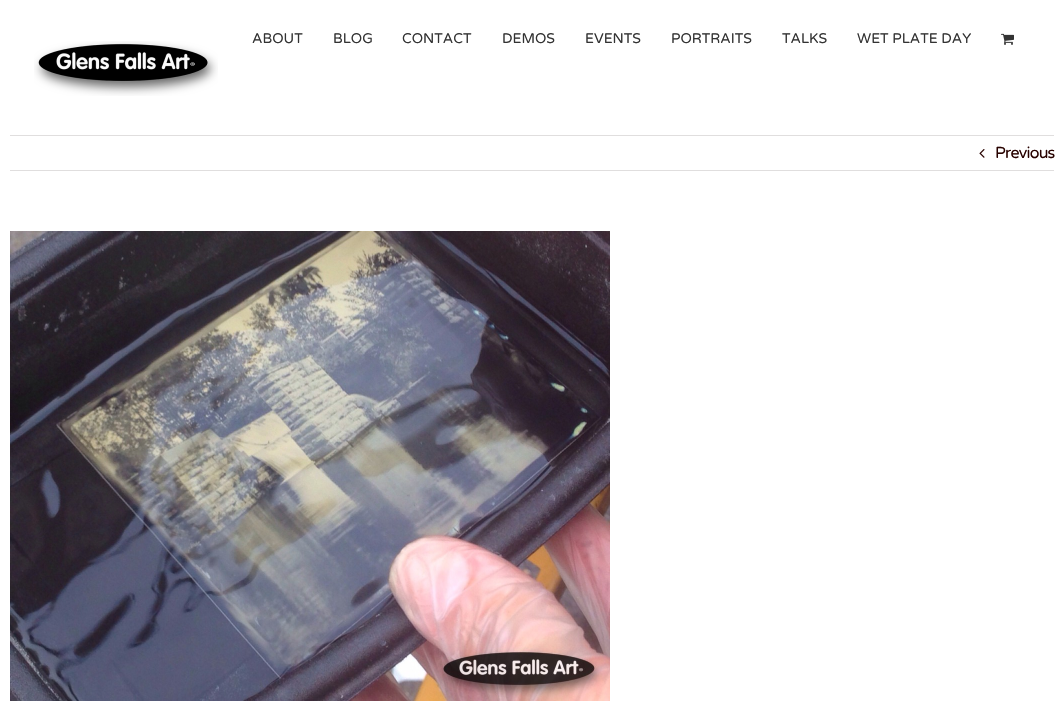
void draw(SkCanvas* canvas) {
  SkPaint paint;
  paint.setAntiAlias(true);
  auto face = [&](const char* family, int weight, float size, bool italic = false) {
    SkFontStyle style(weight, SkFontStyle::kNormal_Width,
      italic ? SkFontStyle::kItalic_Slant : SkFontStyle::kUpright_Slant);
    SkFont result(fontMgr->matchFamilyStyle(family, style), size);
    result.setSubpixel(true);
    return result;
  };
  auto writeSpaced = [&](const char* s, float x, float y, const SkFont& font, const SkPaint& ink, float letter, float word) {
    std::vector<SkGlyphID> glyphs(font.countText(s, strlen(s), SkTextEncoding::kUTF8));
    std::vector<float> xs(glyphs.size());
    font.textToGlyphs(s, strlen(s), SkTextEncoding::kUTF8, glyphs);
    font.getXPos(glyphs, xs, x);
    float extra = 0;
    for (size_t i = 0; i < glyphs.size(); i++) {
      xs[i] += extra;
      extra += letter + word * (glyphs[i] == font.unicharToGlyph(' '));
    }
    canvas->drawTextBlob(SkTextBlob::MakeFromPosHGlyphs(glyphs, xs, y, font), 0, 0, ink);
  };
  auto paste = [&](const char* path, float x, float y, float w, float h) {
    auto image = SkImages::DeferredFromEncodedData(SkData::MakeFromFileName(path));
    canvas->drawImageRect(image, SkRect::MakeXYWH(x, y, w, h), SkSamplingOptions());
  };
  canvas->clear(0xffffffff);
  paste("img/1.png", 1001, 33, 13, 12);
  paste("img/2.png", 34, 41, 184, 55);
  paint.setColor(0xffe0dede);
  canvas->drawRect(SkRect::MakeXYWH(10, 135, 1044, 1), paint);
  canvas->drawRect(SkRect::MakeXYWH(10, 170, 1044, 1), paint);
  paste("img/3.png", 979, 149, 6, 9);
  paste("img/4.png", 10, 231, 600, 470);
  auto f0 = face("Varela Round", 400, 14);
  paint.setColor(0xff333333);
  {
    const struct { const char* s; float x, y; } items[] = {
      {"ABOUT", 252, 43},
      {"BLOG", 333, 43},
      {"CONTACT", 402, 43},
      {"DEMOS", 502, 43},
      {"EVENTS", 585, 43},
      {"PORTRAITS", 671, 43},
      {"TALKS", 782, 43},
      {"WET PLATE DAY", 857, 43},
    };
    for (auto [s, x, y] : items) {
      canvas->drawString(s, x, y, f0, paint);
    }
  }
  auto f1 = face("Varela Round", 400, 16);
  paint.setColor(0xff280200);
  writeSpaced("Previous", 995, 158, f1, paint, -0.75f, 0);
}
